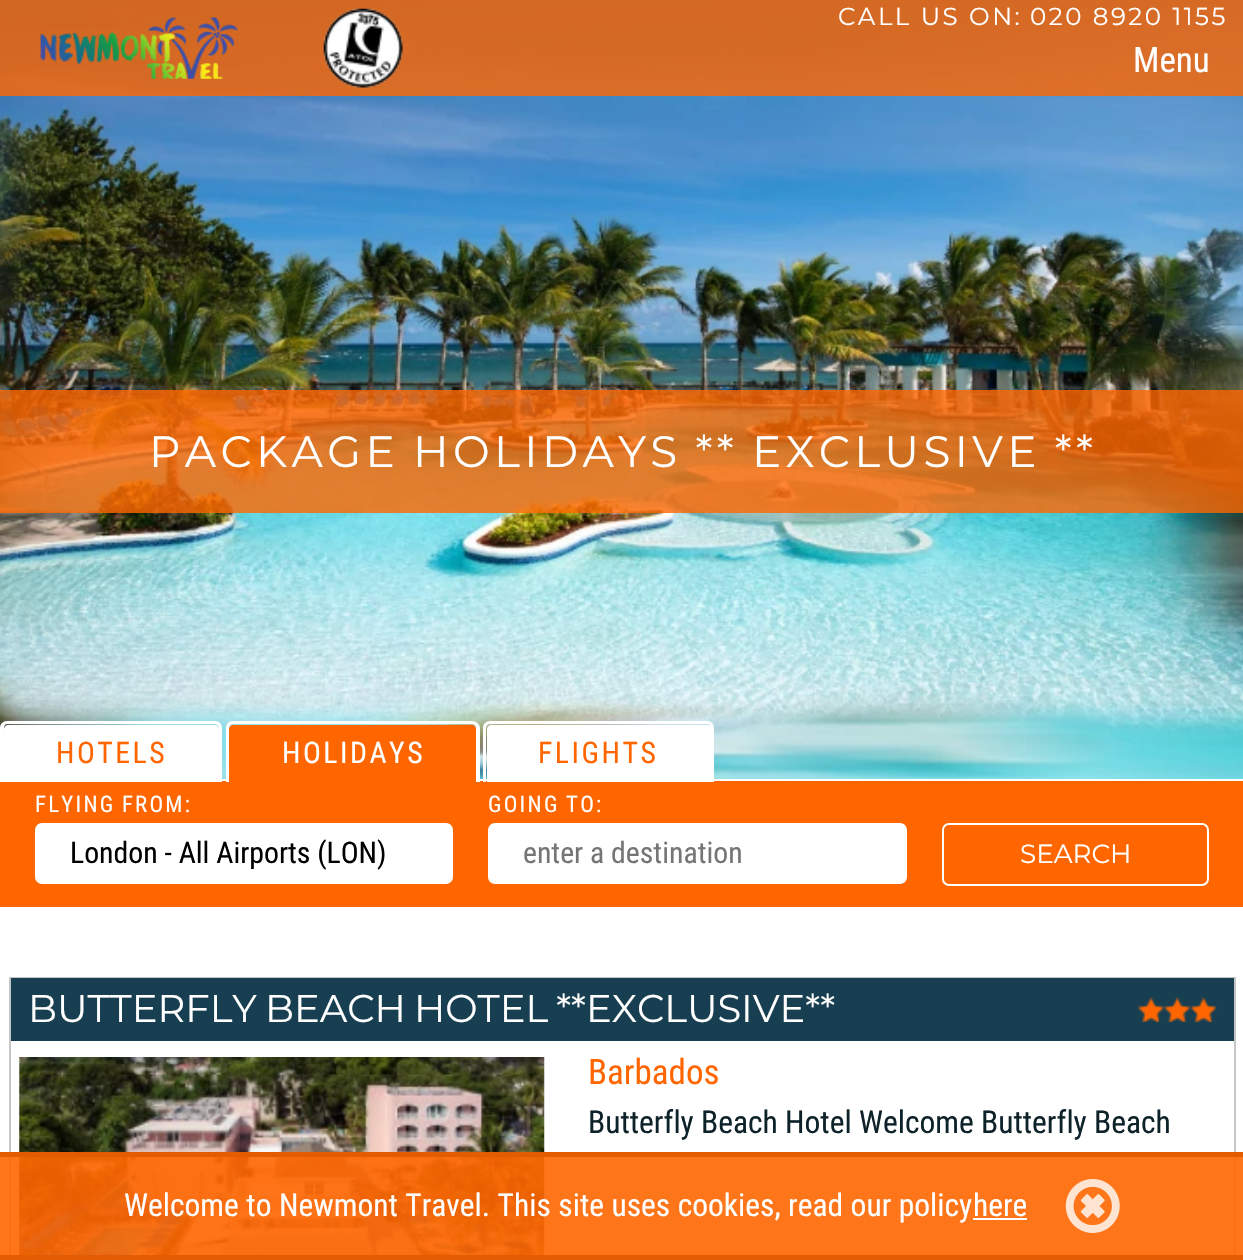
void draw(SkCanvas* canvas) {
  SkPaint paint;
  paint.setAntiAlias(true);
  auto face = [&](const char* family, int weight, float size, bool italic = false) {
    SkFontStyle style(weight, SkFontStyle::kNormal_Width,
      italic ? SkFontStyle::kItalic_Slant : SkFontStyle::kUpright_Slant);
    SkFont result(fontMgr->matchFamilyStyle(family, style), size);
    result.setSubpixel(true);
    return result;
  };
  auto writeSpaced = [&](const char* s, float x, float y, const SkFont& font, const SkPaint& ink, float letter, float word) {
    std::vector<SkGlyphID> glyphs(font.countText(s, strlen(s), SkTextEncoding::kUTF8));
    std::vector<float> xs(glyphs.size());
    font.textToGlyphs(s, strlen(s), SkTextEncoding::kUTF8, glyphs);
    font.getXPos(glyphs, xs, x);
    float extra = 0;
    for (size_t i = 0; i < glyphs.size(); i++) {
      xs[i] += extra;
      extra += letter + word * (glyphs[i] == font.unicharToGlyph(' '));
    }
    canvas->drawTextBlob(SkTextBlob::MakeFromPosHGlyphs(glyphs, xs, y, font), 0, 0, ink);
  };
  auto paste = [&](const char* path, float x, float y, float w, float h) {
    auto image = SkImages::DeferredFromEncodedData(SkData::MakeFromFileName(path));
    canvas->drawImageRect(image, SkRect::MakeXYWH(x, y, w, h), SkSamplingOptions());
  };
  auto shape = [&](const char* data, bool evenOdd = false) {
    SkPath result = *SkParsePath::FromSVGString(data);
    if (evenOdd) result.setFillType(SkPathFillType::kEvenOdd);
    return result;
  };
  canvas->clear(0xffffffff);
  paste("img/3.png", 0, 0, 1243, 779);
  paint.setColor(0xccff6600);
  canvas->drawRect(SkRect::MakeXYWH(0, 0, 1243, 96), paint);
  paste("img/1.png", 39, 17, 200, 62);
  paste("img/2.png", 323, 8, 80, 80);
  canvas->drawRect(SkRect::MakeXYWH(0, 390, 1243, 123), paint);
  paint.setColor(0xffff6600);
  canvas->drawRect(SkRect::MakeXYWH(0, 781, 1243, 126), paint);
  paint.setColor(0xffffffff);
  canvas->drawPath(shape("M8 725H215C217 725 219 727 219 729V782H4V729C4 727 6 725 8 725Z"), paint);
  canvas->drawPath(shape("M7 721H215C219 721 222 724 222 728V782H0V728C0 724 3 721 7 721ZM7 724H215C217 724 219 726 219 728V782H4V728C4 726 5 724 7 724Z", true), paint);
  paint.setColor(0xffff6600);
  canvas->drawPath(shape("M233 725H472C474 725 476 727 476 729V782H229V729C229 727 231 725 233 725Z"), paint);
  paint.setColor(0xffffffff);
  canvas->drawPath(shape("M233 721H472C476 721 480 724 480 728V782H226V728C226 724 229 721 233 721ZM233 724H472C474 724 476 726 476 728V782H229V728C229 726 231 724 233 724Z", true), paint);
  canvas->drawPath(shape("M491 725H707C709 725 711 727 711 729V782H487V729C487 727 489 725 491 725Z"), paint);
  canvas->drawPath(shape("M490 721H707C711 721 714 724 714 728V782H483V728C483 724 486 721 490 721ZM490 724H707C709 724 710 726 710 728V782H486V728C486 726 488 724 490 724Z", true), paint);
  canvas->drawRoundRect(SkRect::MakeXYWH(35, 823, 418, 61), 7, 7, paint);
  canvas->drawRoundRect(SkRect::MakeXYWH(488, 823, 419, 61), 7, 7, paint);
  paint.setStroke(true);
  paint.setStrokeWidth(2);
  canvas->drawRoundRect(SkRect::MakeXYWH(943, 824, 265, 61), 6, 6, paint);
  paint.setColor(0xffc6c6c6);
  canvas->drawRect(SkRect::MakeXYWH(10, 978, 1225, 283), paint);
  paint.setStroke(false);
  paint.setColor(0xff183f51);
  canvas->drawRect(SkRect::MakeXYWH(11, 978, 1223, 63), paint);
  paste("img/4.png", 1137, 997, 27, 25);
  paste("img/5.png", 1163, 997, 27, 25);
  paste("img/6.png", 1190, 997, 27, 25);
  paste("img/7.png", 19, 1057, 526, 198);
  {
    const struct { float x, y, w, h; SkColor color; } items[] = {
      {0, 1157, 1243, 98, 0xe6ff6600},
      {0, 1152, 1243, 5, 0xffe35c02},
      {0, 1255, 1243, 5, 0xffe35c02},
      {973, 1218, 54, 2, 0xffffffff},
    };
    for (auto [x, y, w, h, color] : items) {
      paint.setColor(color);
      canvas->drawRect(SkRect::MakeXYWH(x, y, w, h), paint);
    }
  }
  paste("img/8.png", 1065, 1179, 55, 54);
  auto f0 = face("Montserrat", 400, 24.5f);
  writeSpaced("CALL US ON:", 838, 25, f0, paint, 2.5f, 0);
  writeSpaced("020 8920 1155", 1030, 25, f0, paint, 2.5f, 0);
  auto f1 = face("Roboto Condensed", 400, 35);
  canvas->drawString("Menu", 1133, 72, f1, paint);
  auto f2 = face("Montserrat", 400, 43.75f);
  writeSpaced("PACKAGE HOLIDAYS ** EXCLUSIVE **", 149, 467, f2, paint, 4.4f, -2);
  auto f3 = face("Roboto Condensed", 400, 29.75f);
  paint.setColor(0xffff6600);
  writeSpaced("HOTELS", 56, 763, f3, paint, 2.5f, 0);
  paint.setColor(0xffffffff);
  writeSpaced("HOLIDAYS", 282, 763, f3, paint, 2.5f, 0);
  paint.setColor(0xffff6600);
  writeSpaced("FLIGHTS", 538, 763, f3, paint, 2.5f, 0);
  auto f4 = face("Roboto Condensed", 400, 22.75f);
  paint.setColor(0xffffffff);
  writeSpaced("FLYING FROM:", 35, 812, f4, paint, 2.25f, -1);
  paint.setColor(0xff000000);
  canvas->drawString("London - All Airports (LON)", 70, 863, f3, paint);
  paint.setColor(0xffffffff);
  writeSpaced("GOING TO:", 488, 812, f4, paint, 2.25f, -1);
  paint.setColor(0xff757575);
  canvas->drawString("enter a destination", 523, 863, f3, paint);
  auto f5 = face("Montserrat", 400, 26.25f);
  paint.setColor(0xffffffff);
  canvas->drawString("SEARCH", 1020, 863, f5, paint);
  auto f6 = face("Montserrat", 400, 38.5f);
  writeSpaced("BUTTERFLY BEACH HOTEL **EXCLUSIVE**", 28, 1022, f6, paint, 0, -2);
  paint.setColor(0xffff6600);
  canvas->drawString("Barbados", 588, 1084, f1, paint);
  auto f7 = face("Roboto Condensed", 400, 31.5f);
  paint.setColor(0xff0e2229);
  canvas->drawString("Butterfly Beach Hotel Welcome", 588, 1133, f7, paint);
  canvas->drawString("Butterfly Beach", 981, 1133, f7, paint);
  paint.setColor(0xffffffff);
  writeSpaced("Welcome to Newmont Travel. This site uses cookies, read our policy", 124, 1216, f7, paint, 0, 0.25f);
  canvas->drawString("here", 973, 1216, f7, paint);
}
